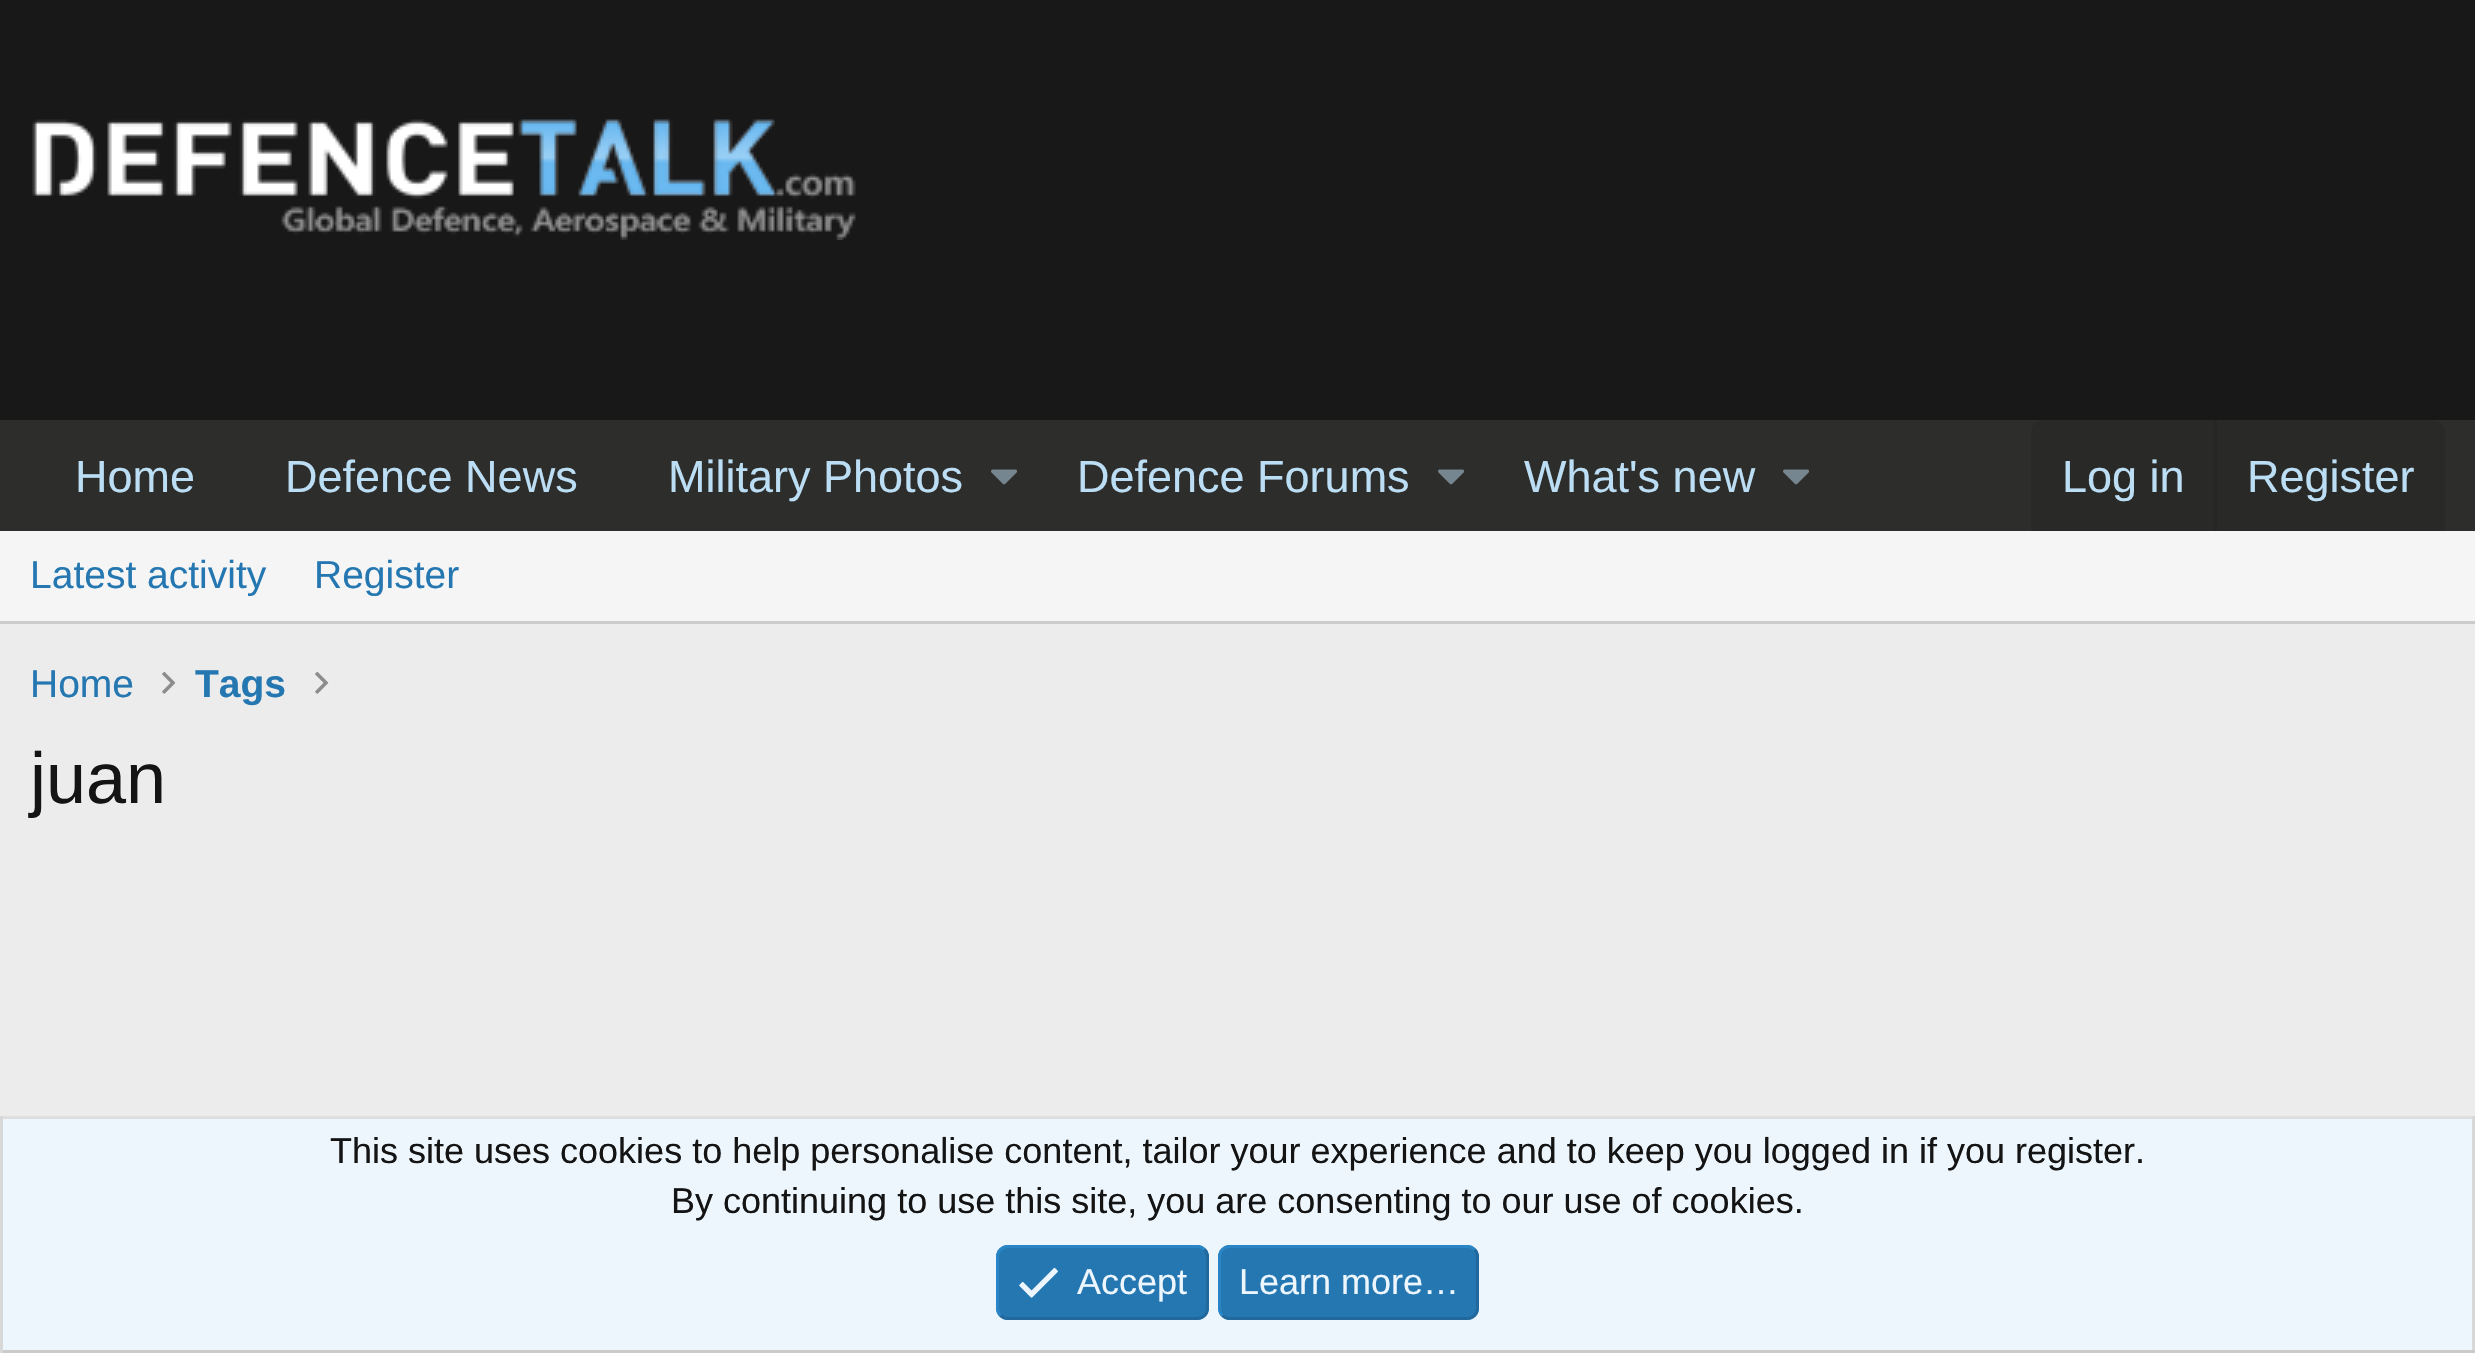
void draw(SkCanvas* canvas) {
  SkPaint paint;
  paint.setAntiAlias(true);
  auto face = [&](const char* family, int weight, float size, bool italic = false) {
    SkFontStyle style(weight, SkFontStyle::kNormal_Width,
      italic ? SkFontStyle::kItalic_Slant : SkFontStyle::kUpright_Slant);
    SkFont result(fontMgr->matchFamilyStyle(family, style), size);
    result.setSubpixel(true);
    return result;
  };
  auto paste = [&](const char* path, float x, float y, float w, float h) {
    auto image = SkImages::DeferredFromEncodedData(SkData::MakeFromFileName(path));
    canvas->drawImageRect(image, SkRect::MakeXYWH(x, y, w, h), SkSamplingOptions());
  };
  auto shape = [&](const char* data, bool evenOdd = false) {
    SkPath result = *SkParsePath::FromSVGString(data);
    if (evenOdd) result.setFillType(SkPathFillType::kEvenOdd);
    return result;
  };
  canvas->clear(0xffececec);
  paint.setColor(0xff191818);
  canvas->drawRect(SkRect::MakeXYWH(0, 0, 2475, 420), paint);
  paste("img/1.png", 32, 119, 824, 121);
  paint.setColor(0xff2d2d2b);
  canvas->drawRect(SkRect::MakeXYWH(0, 420, 2475, 111), paint);
  paste("img/2.png", 991, 469, 27, 16);
  paste("img/2.png", 1438, 469, 27, 16);
  paste("img/2.png", 1783, 469, 27, 16);
  paint.setColor(0xff292928);
  canvas->drawPath(shape("M2043 420H2433C2439.5 420 2445 425.5 2445 432V531H2031V432C2031 425.5 2036.5 420 2043 420Z"), paint);
  {
    const struct { float x, y, w, h; SkColor color; } items[] = {
      {2214, 420, 3, 111, 0xff262625},
      {0, 531, 2475, 90, 0xfff5f5f5},
      {0, 621, 2475, 3, 0xffcbcbcb},
    };
    for (auto [x, y, w, h, color] : items) {
      paint.setColor(color);
      canvas->drawRect(SkRect::MakeXYWH(x, y, w, h), paint);
    }
  }
  paste("img/3.png", 162, 671, 14, 23);
  paste("img/3.png", 315, 671, 14, 23);
  {
    const struct { float x, y, w, h; SkColor color; } items[] = {
      {3, 1119, 2469, 231, 0xffedf6fd},
      {0, 1116, 2475, 3, 0xffdfdfdf},
      {2472, 1116, 3, 237, 0xffd8d8d8},
      {0, 1350, 2475, 3, 0xffcbcbcb},
      {0, 1116, 3, 237, 0xffd8d8d8},
    };
    for (auto [x, y, w, h, color] : items) {
      paint.setColor(color);
      canvas->drawRect(SkRect::MakeXYWH(x, y, w, h), paint);
    }
  }
  paint.setColor(0xff2577b1);
  canvas->drawRoundRect(SkRect::MakeXYWH(996, 1245, 213, 75), 12, 12, paint);
  paint.setStroke(true);
  paint.setStrokeWidth(3);
  paint.setColor(0xff21699c);
  canvas->drawPath(shape("M1204.5 1249.5C1206.5 1251.5 1207.5 1254 1207.5 1257V1308C1207.5 1311 1206.5 1313.5 1204.5 1315.5C1202.5 1317.5 1200 1318.5 1197 1318.5H1008C1005 1318.5 1002.5 1317.5 1000.5 1315.5"), paint);
  paint.setColor(0xff2985c6);
  canvas->drawPath(shape("M1000.5 1315.5C998.5 1313.5 997.5 1311 997.5 1308V1257C997.5 1254 998.5 1251.5 1000.5 1249.5C1002.5 1247.5 1005 1246.5 1008 1246.5H1197C1200 1246.5 1202.5 1247.5 1204.5 1249.5"), paint);
  paste("img/4.png", 1019, 1267, 39, 31);
  paint.setStroke(false);
  paint.setColor(0xff2577b1);
  canvas->drawRoundRect(SkRect::MakeXYWH(1218, 1245, 261, 75), 12, 12, paint);
  paint.setStroke(true);
  paint.setColor(0xff21699c);
  canvas->drawPath(shape("M1474.5 1249.5C1476.5 1251.5 1477.5 1254 1477.5 1257V1308C1477.5 1311 1476.5 1313.5 1474.5 1315.5C1472.5 1317.5 1470 1318.5 1467 1318.5H1230C1227 1318.5 1224.5 1317.5 1222.5 1315.5"), paint);
  paint.setColor(0xff2985c6);
  canvas->drawPath(shape("M1222.5 1315.5C1220.5 1313.5 1219.5 1311 1219.5 1308V1257C1219.5 1254 1220.5 1251.5 1222.5 1249.5C1224.5 1247.5 1227 1246.5 1230 1246.5H1467C1470 1246.5 1472.5 1247.5 1474.5 1249.5"), paint);
  auto f0 = face("Liberation Sans", 400, 45);
  paint.setStroke(false);
  paint.setColor(0xffbcdef5);
  {
    const struct { const char* s; float x, y; } items[] = {
      {"Home", 75, 492},
      {"Defence News", 285, 492},
      {"Military Photos", 668, 492},
      {"Defence Forums", 1077, 492},
      {"What's new", 1524, 492},
      {"Log in", 2062, 492},
      {"Register", 2247, 492},
    };
    for (auto [s, x, y] : items) {
      canvas->drawString(s, x, y, f0, paint);
    }
  }
  auto f1 = face("Liberation Sans", 400, 39);
  paint.setColor(0xff2577b1);
  {
    const struct { const char* s; float x, y; } items[] = {
      {"Latest activity", 30, 588},
      {"Register", 314, 588},
      {"Home", 30, 697},
    };
    for (auto [s, x, y] : items) {
      canvas->drawString(s, x, y, f1, paint);
    }
  }
  auto f2 = face("Liberation Sans", 700, 39);
  canvas->drawString("Tags", 195, 697, f2, paint);
  auto f3 = face("Liberation Sans", 400, 72);
  paint.setColor(0xff141414);
  canvas->drawString("juan", 30, 803, f3, paint);
  auto f4 = face("Liberation Sans", 400, 36);
  canvas->drawString("This site uses cookies to help personalise content, tailor your experience and to keep you logged in if you register.", 330, 1163, f4, paint);
  canvas->drawString("By continuing to use this site, you are consenting to our use of cookies.", 671, 1213, f4, paint);
  paint.setColor(0xffedf6fd);
  canvas->drawString("Accept", 1077, 1294, f4, paint);
  canvas->drawString("Learn more…", 1239, 1294, f4, paint);
}
